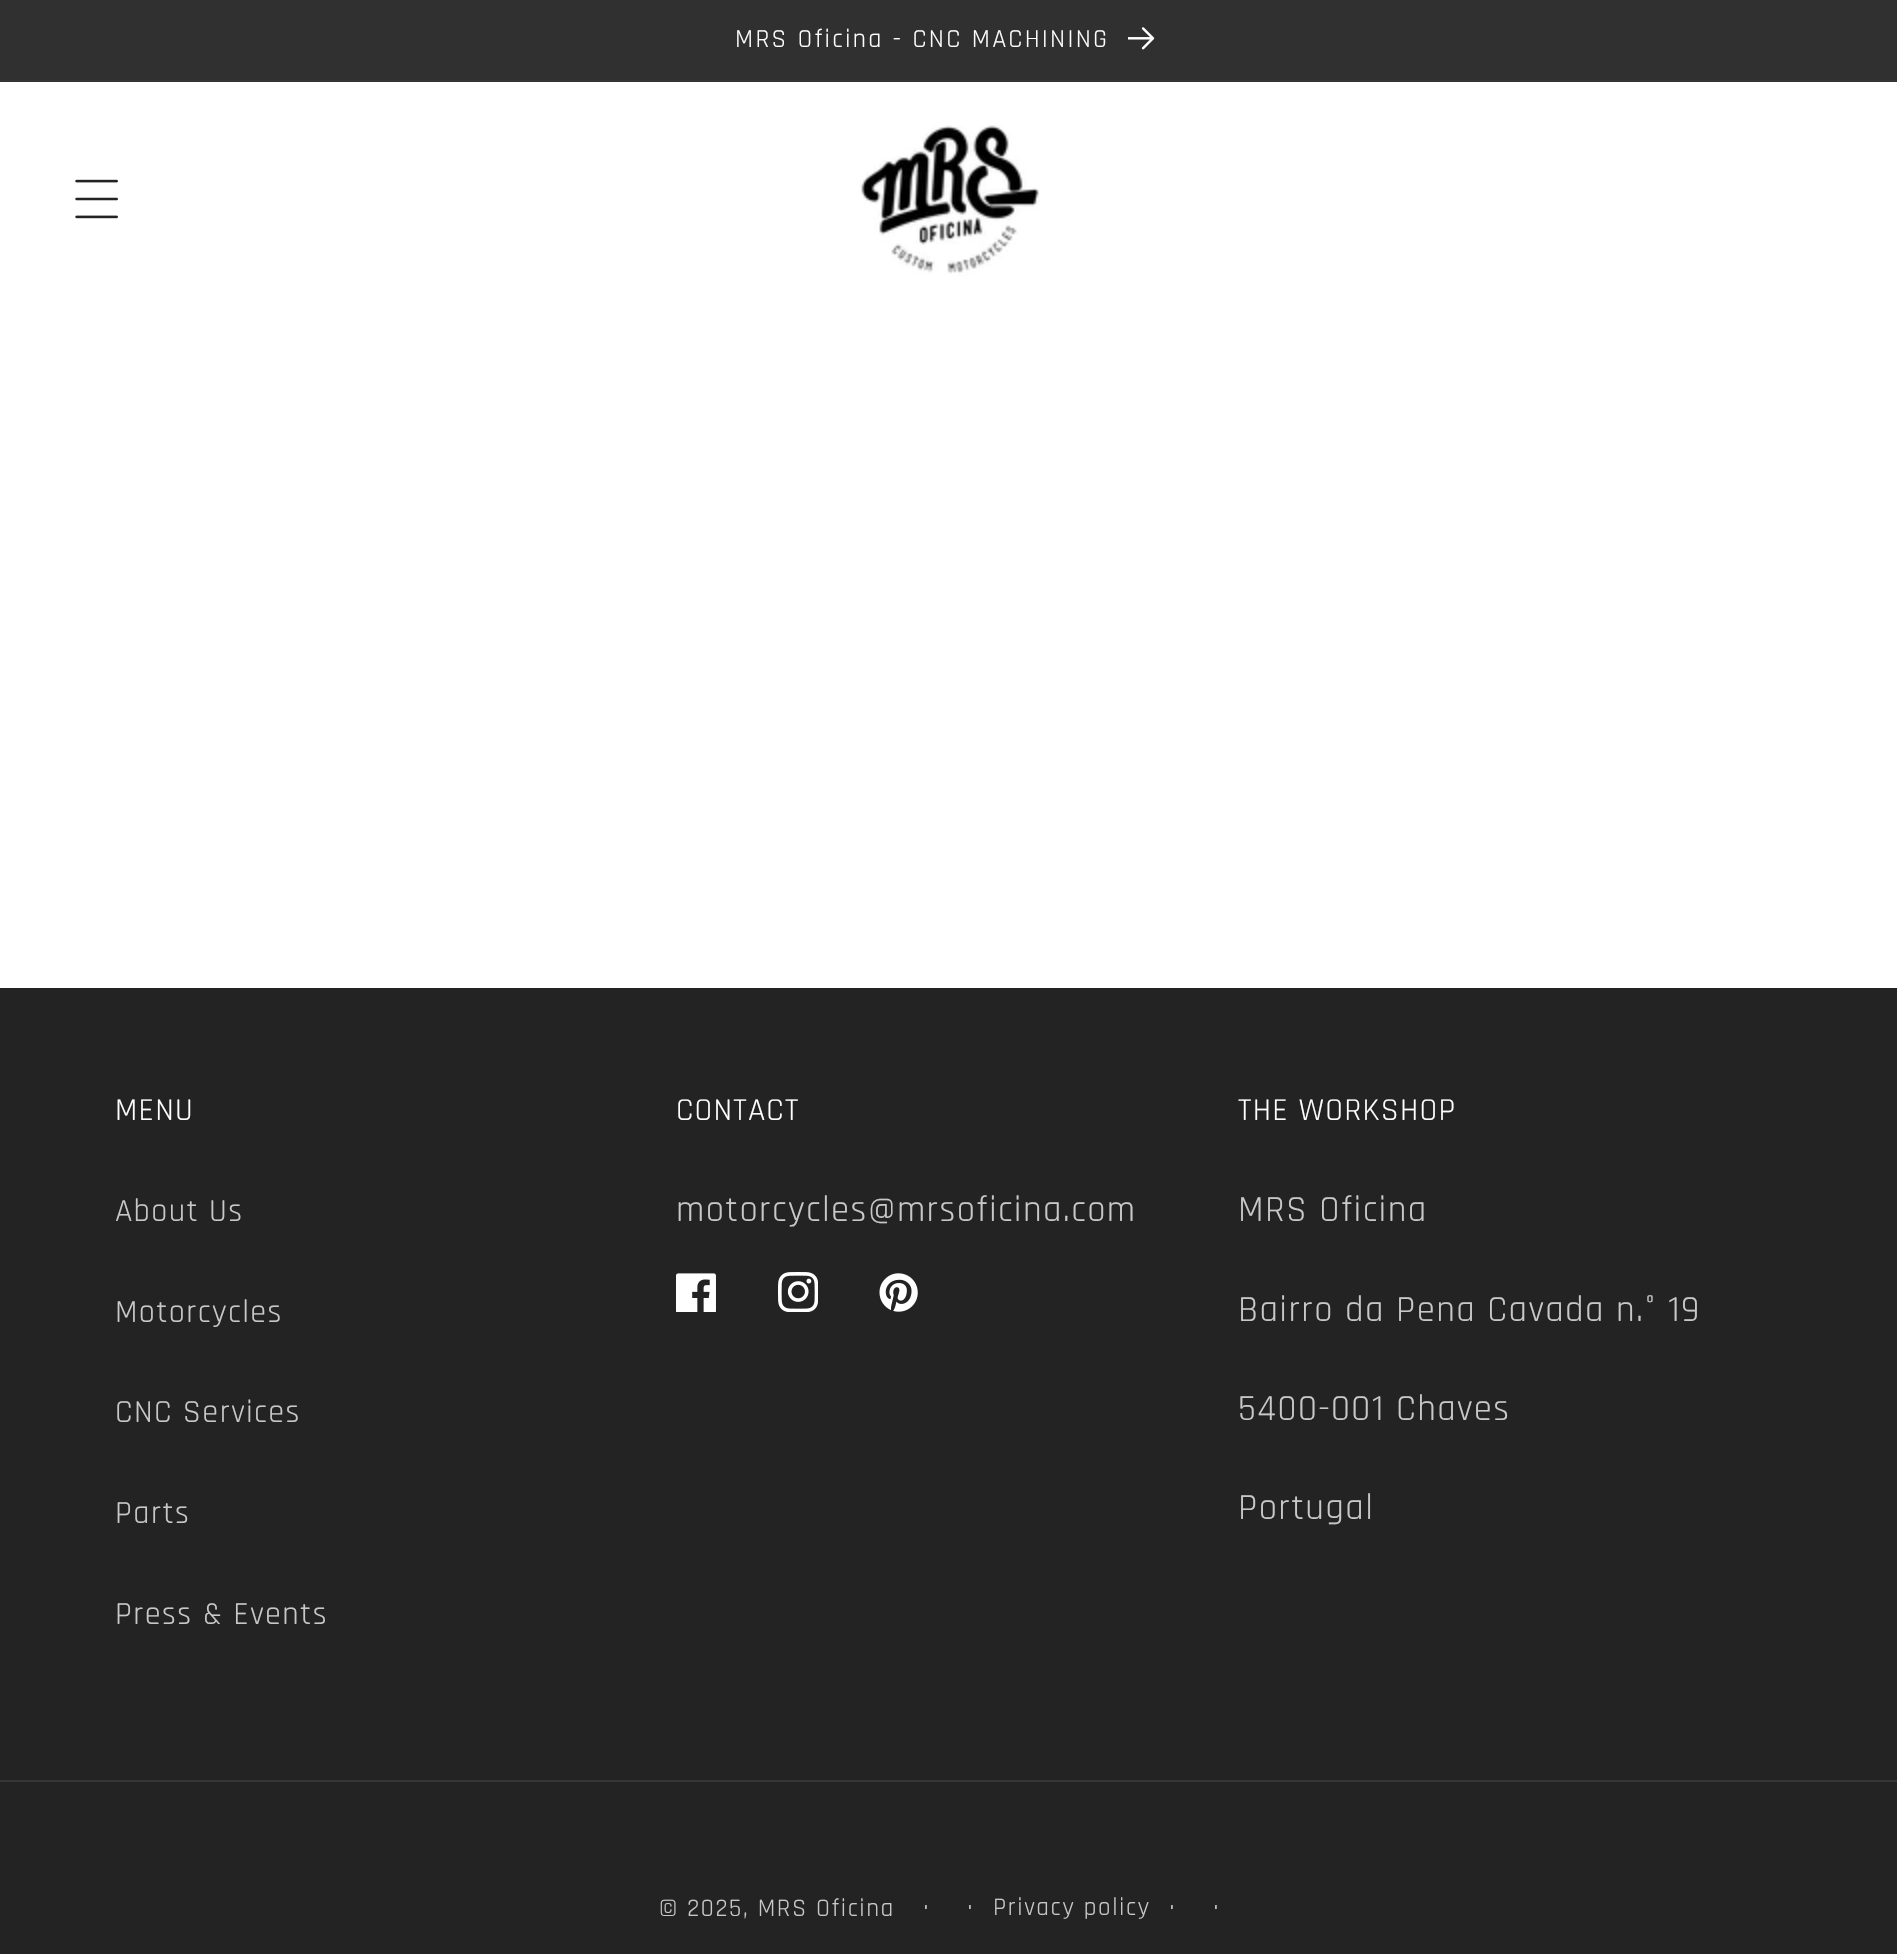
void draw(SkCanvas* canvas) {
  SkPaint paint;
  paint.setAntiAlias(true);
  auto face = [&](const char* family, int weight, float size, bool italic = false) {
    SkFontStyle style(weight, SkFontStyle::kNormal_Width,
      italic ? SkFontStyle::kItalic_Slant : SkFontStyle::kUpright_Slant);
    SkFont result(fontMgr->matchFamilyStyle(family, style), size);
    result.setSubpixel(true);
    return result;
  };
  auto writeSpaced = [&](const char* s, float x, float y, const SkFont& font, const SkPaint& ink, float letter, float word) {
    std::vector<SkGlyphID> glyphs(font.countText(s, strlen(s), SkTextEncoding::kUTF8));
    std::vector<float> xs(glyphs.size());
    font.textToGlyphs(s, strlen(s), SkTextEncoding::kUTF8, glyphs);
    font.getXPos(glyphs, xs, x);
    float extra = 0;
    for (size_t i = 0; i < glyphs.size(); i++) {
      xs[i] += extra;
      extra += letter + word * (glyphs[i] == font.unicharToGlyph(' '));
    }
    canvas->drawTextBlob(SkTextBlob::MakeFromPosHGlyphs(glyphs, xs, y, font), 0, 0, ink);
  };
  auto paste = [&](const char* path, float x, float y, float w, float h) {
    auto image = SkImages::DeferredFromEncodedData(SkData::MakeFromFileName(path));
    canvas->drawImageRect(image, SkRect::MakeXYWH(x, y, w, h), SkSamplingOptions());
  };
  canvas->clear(0xffffffff);
  paint.setColor(0xff353535);
  canvas->drawRect(SkRect::MakeXYWH(0, 80, 1897, 2), paint);
  paint.setColor(0xff303030);
  canvas->drawRect(SkRect::MakeXYWH(0, 0, 1897, 80), paint);
  paste("img/1.png", 1128, 27, 27, 23);
  paste("img/2.png", 75, 179, 43, 40);
  paste("img/3.png", 859, 125, 181, 151);
  paint.setColor(0xff232323);
  canvas->drawRect(SkRect::MakeXYWH(0, 988, 1897, 966), paint);
  paste("img/4.png", 676, 1273, 40, 39);
  paste("img/5.png", 778, 1272, 40, 40);
  paste("img/6.png", 879, 1273, 39, 39);
  paint.setColor(0xff353535);
  canvas->drawRect(SkRect::MakeXYWH(0, 1780, 1897, 2), paint);
  auto f0 = face("Rajdhani", 400, 26);
  paint.setColor(0xffffffff);
  writeSpaced("MRS Oficina - CNC MACHINING", 735, 47, f0, paint, 2.3f, 0);
  auto f1 = face("Rajdhani", 400, 32);
  writeSpaced("MENU", 115, 1120, f1, paint, 1.25f, 0);
  auto f2 = face("Rajdhani", 400, 32.25f);
  paint.setColor(0xffc8c8c8);
  {
    const struct { const char* s; float x, y; } items[] = {
      {"About Us", 115, 1221},
      {"Motorcycles", 115, 1322},
      {"CNC Services", 115, 1422},
      {"Parts", 115, 1523},
      {"Press & Events", 115, 1624},
    };
    for (auto [s, x, y] : items) {
      writeSpaced(s, x, y, f2, paint, 1.4f, 0);
    }
  }
  paint.setColor(0xffffffff);
  writeSpaced("CONTACT", 676, 1120, f1, paint, 1.25f, 0);
  auto f3 = face("Rajdhani", 400, 36.75f);
  paint.setColor(0xffc8c8c8);
  writeSpaced("motorcycles@mrsoficina.com", 676, 1221, f3, paint, 1.4f, 0);
  paint.setColor(0xffffffff);
  writeSpaced("THE WORKSHOP", 1238, 1120, f1, paint, 1.25f, 0);
  paint.setColor(0xffc8c8c8);
  {
    const struct { const char* s; float x, y; } items[] = {
      {"MRS Oficina", 1238, 1221},
      {"Bairro da Pena Cavada n.° 19", 1238, 1321},
      {"5400-001 Chaves", 1238, 1420},
      {"Portugal", 1238, 1519},
    };
    for (auto [s, x, y] : items) {
      writeSpaced(s, x, y, f3, paint, 1.4f, 0);
    }
  }
  auto f4 = face("Rajdhani", 400, 25.25f);
  writeSpaced("© 2025, MRS Oficina", 659, 1916, f4, paint, 1.6f, 0);
  auto f5 = face("Rajdhani", 400, 28);
  writeSpaced("·", 923, 1916, f5, paint, 1.6f, 0);
  writeSpaced("·", 967, 1916, f5, paint, 1.6f, 0);
  writeSpaced("Privacy policy", 993, 1915, f4, paint, 1.6f, 0);
  writeSpaced("·", 1169, 1916, f5, paint, 1.6f, 0);
  writeSpaced("·", 1213, 1916, f5, paint, 1.6f, 0);
}
